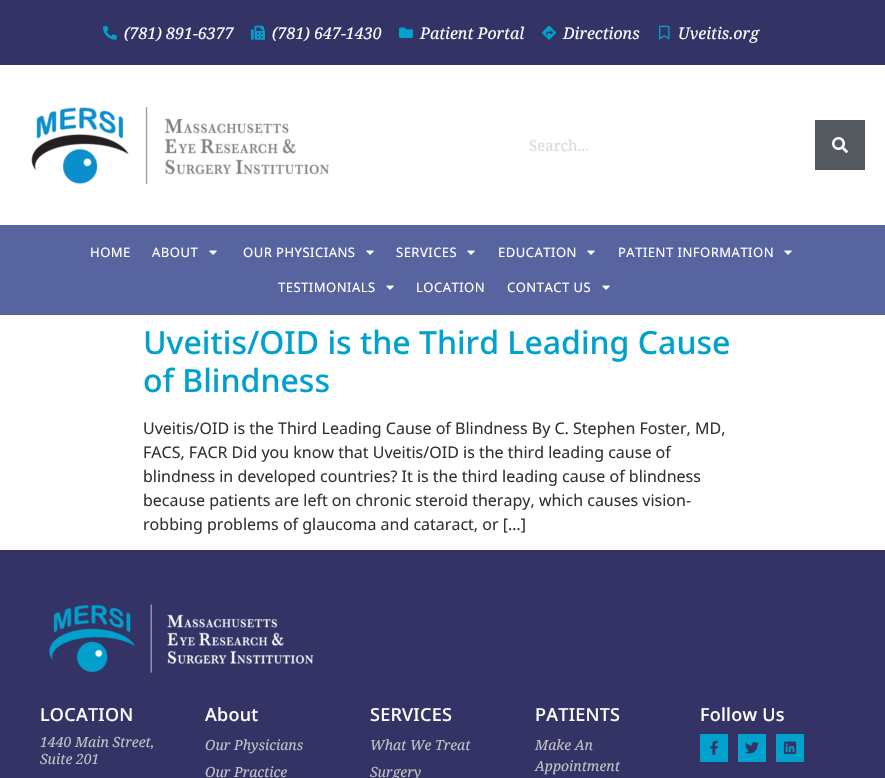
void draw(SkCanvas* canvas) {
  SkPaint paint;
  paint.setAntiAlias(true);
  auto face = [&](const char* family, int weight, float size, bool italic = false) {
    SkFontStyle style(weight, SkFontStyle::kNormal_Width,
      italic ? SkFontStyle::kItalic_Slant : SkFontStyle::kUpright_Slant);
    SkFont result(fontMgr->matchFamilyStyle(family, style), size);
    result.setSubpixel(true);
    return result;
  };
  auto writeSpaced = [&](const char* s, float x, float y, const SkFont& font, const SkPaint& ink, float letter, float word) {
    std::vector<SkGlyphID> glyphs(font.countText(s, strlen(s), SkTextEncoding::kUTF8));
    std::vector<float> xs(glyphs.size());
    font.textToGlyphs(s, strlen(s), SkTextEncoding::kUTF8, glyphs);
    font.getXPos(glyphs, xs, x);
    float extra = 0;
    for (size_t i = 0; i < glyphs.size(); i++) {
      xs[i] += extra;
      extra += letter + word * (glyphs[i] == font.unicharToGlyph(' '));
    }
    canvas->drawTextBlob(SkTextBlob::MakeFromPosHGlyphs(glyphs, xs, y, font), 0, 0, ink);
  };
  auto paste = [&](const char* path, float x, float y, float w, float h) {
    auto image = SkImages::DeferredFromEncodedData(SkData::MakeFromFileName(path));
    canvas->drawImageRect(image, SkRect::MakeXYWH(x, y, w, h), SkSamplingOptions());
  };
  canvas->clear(0xffffffff);
  paint.setColor(0xff333366);
  canvas->drawRect(SkRect::MakeXYWH(0, 0, 885, 65), paint);
  paste("img/1.png", 103, 25, 14, 15);
  paste("img/2.png", 251, 25, 14, 15);
  paste("img/3.png", 399, 27, 14, 11);
  paste("img/4.png", 542, 25, 14, 15);
  paste("img/5.png", 659, 25, 11, 15);
  paste("img/6.png", 31, 106, 299, 79);
  paint.setColor(0xff54595f);
  canvas->drawRect(SkRect::MakeXYWH(815, 120, 50, 50), paint);
  paste("img/7.png", 832, 137, 16, 16);
  paint.setColor(0xff5764a0);
  canvas->drawRect(SkRect::MakeXYWH(0, 225, 885, 90), paint);
  paste("img/8.png", 209, 250, 8, 5);
  paste("img/8.png", 366, 250, 8, 5);
  paste("img/8.png", 467, 250, 8, 5);
  paste("img/8.png", 587, 250, 8, 5);
  paste("img/8.png", 784, 250, 8, 5);
  paste("img/8.png", 386, 285, 8, 5);
  paste("img/8.png", 602, 285, 8, 5);
  paint.setColor(0xff333366);
  canvas->drawRect(SkRect::MakeXYWH(0, 550, 885, 228), paint);
  paste("img/9.png", 49, 604, 265, 69);
  paint.setColor(0xff01a1cd);
  canvas->drawRect(SkRect::MakeXYWH(700, 734, 28, 28), paint);
  paste("img/10.png", 710, 740, 8, 15);
  canvas->drawRect(SkRect::MakeXYWH(738, 734, 28, 28), paint);
  paste("img/11.png", 745, 742, 14, 12);
  canvas->drawRect(SkRect::MakeXYWH(776, 734, 28, 28), paint);
  paste("img/12.png", 783, 741, 14, 13);
  auto f0 = face("Noto Serif", 400, 16, true);
  paint.setColor(0xffffffff);
  {
    const struct { const char* s; float x, y; } items[] = {
      {"(781) 891-6377", 124, 39},
      {"(781) 647-1430", 272, 39},
      {"Patient Portal", 420, 39},
      {"Directions", 563, 39},
      {"Uveitis.org", 678, 39},
    };
    for (auto [s, x, y] : items) {
      canvas->drawString(s, x, y, f0, paint);
    }
  }
  auto f1 = face("Noto Serif", 400, 15);
  paint.setColor(0xffdadada);
  canvas->drawString("Search...", 529, 151, f1, paint);
  auto f2 = face("Noto Sans", 400, 13);
  paint.setColor(0xffffffff);
  {
    const struct { const char* s; float x, y; } items[] = {
      {"HOME", 90, 257},
      {"ABOUT", 152, 257},
      {"OUR PHYSICIANS", 243, 257},
      {"SERVICES", 396, 257},
      {"EDUCATION", 498, 257},
      {"PATIENT INFORMATION", 618, 257},
      {"TESTIMONIALS", 278, 292},
      {"LOCATION", 416, 292},
      {"CONTACT US", 507, 292},
    };
    for (auto [s, x, y] : items) {
      writeSpaced(s, x, y, f2, paint, 0.5f, 0);
    }
  }
  auto f3 = face("Noto Sans", 500, 32);
  paint.setColor(0xff01a1cd);
  canvas->drawString("Uveitis/OID is the Third Leading Cause", 143, 354, f3, paint);
  canvas->drawString("of Blindness", 143, 392, f3, paint);
  auto f4 = face("Noto Sans", 400, 16);
  paint.setColor(0xff333333);
  {
    const struct { const char* s; float x, y; } items[] = {
      {"Uveitis/OID is the Third Leading Cause of Blindness By C. Stephen Foster, MD,", 143, 434},
      {"FACS, FACR Did you know that Uveitis/OID is the third leading cause of", 143, 458},
      {"blindness in developed countries? It is the third leading cause of blindness", 143, 482},
      {"because patients are left on chronic steroid therapy, which causes vision-", 143, 506},
      {"robbing problems of glaucoma and cataract, or […]", 143, 530},
    };
    for (auto [s, x, y] : items) {
      canvas->drawString(s, x, y, f4, paint);
    }
  }
  auto f5 = face("Noto Sans", 500, 18);
  paint.setColor(0xffffffff);
  writeSpaced("LOCATION", 40, 721, f5, paint, 0.25f, 0);
  auto f6 = face("Noto Serif", 400, 14, true);
  paint.setColor(0xffc2c2c2);
  canvas->drawString("1440 Main Street,", 40, 747, f6, paint);
  canvas->drawString("Suite 201", 40, 764, f6, paint);
  paint.setColor(0xffffffff);
  writeSpaced("About", 205, 721, f5, paint, 0.25f, 0);
  paint.setColor(0xffc2c2c2);
  canvas->drawString("Our Physicians", 205, 750, f6, paint);
  canvas->drawString("Our Practice", 205, 777, f6, paint);
  paint.setColor(0xffffffff);
  writeSpaced("SERVICES", 370, 721, f5, paint, 0.25f, 0);
  paint.setColor(0xffc2c2c2);
  canvas->drawString("What We Treat", 370, 750, f6, paint);
  canvas->drawString("Surgery", 370, 777, f6, paint);
  paint.setColor(0xffffffff);
  writeSpaced("PATIENTS", 535, 721, f5, paint, 0.25f, 0);
  paint.setColor(0xffc2c2c2);
  canvas->drawString("Make An", 535, 750, f6, paint);
  canvas->drawString("Appointment", 535, 771, f6, paint);
  paint.setColor(0xffffffff);
  writeSpaced("Follow Us", 700, 721, f5, paint, 0.25f, 0);
}
